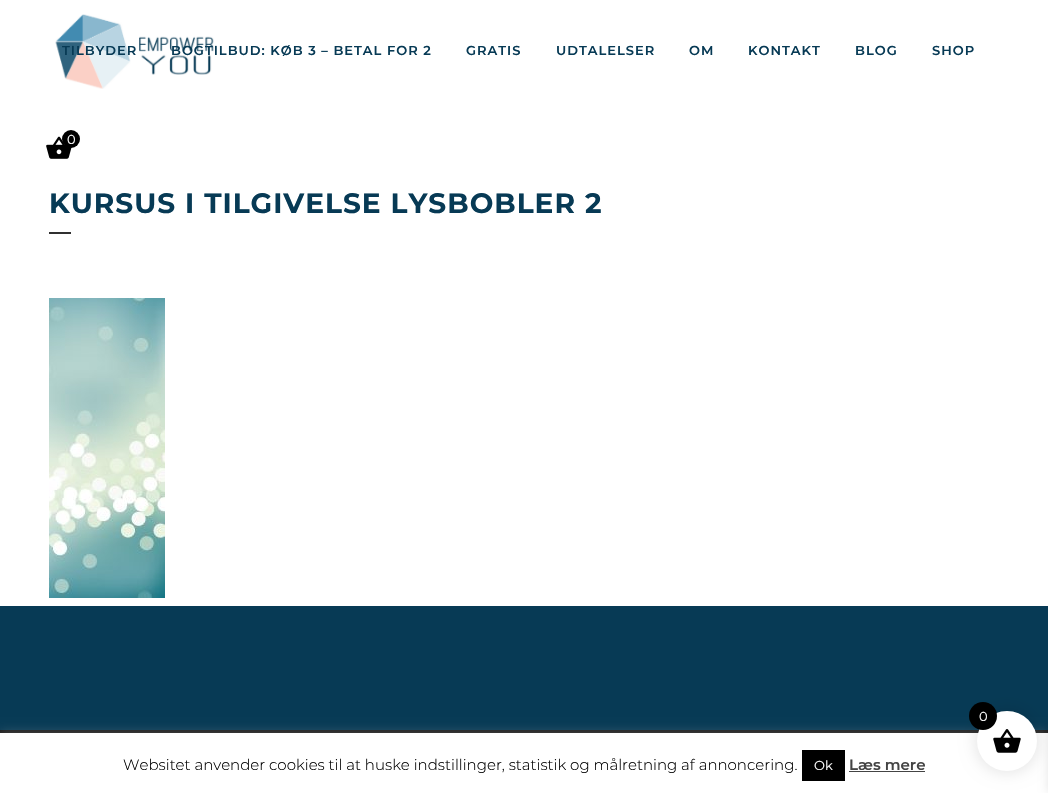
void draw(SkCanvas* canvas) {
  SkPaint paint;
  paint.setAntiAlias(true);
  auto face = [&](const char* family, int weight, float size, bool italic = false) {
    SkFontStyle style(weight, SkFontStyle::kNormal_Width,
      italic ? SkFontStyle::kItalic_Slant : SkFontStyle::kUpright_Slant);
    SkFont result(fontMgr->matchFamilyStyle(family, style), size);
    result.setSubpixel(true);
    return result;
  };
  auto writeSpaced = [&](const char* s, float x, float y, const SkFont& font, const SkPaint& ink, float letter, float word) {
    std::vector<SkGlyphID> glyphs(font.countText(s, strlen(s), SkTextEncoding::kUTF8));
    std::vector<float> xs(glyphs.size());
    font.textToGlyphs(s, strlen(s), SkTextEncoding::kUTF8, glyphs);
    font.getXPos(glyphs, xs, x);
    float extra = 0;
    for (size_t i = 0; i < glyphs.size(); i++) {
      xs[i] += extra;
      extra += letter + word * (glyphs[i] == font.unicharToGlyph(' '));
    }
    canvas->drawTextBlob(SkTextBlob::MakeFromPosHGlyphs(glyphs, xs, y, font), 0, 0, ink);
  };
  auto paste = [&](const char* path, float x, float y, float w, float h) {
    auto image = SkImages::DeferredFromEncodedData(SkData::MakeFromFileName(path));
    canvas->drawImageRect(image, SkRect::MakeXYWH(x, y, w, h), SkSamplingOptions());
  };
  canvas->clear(0xffffffff);
  paste("img/1.png", 55, 14, 159, 75);
  paste("img/2.png", 46, 136, 26, 23);
  paint.setColor(0xff000000);
  canvas->drawCircle(71, 139, 9, paint);
  paint.setColor(0xff303030);
  canvas->drawRect(SkRect::MakeXYWH(49, 232, 22, 2), paint);
  paste("img/3.png", 49, 298, 116, 300);
  paint.setColor(0xff073a55);
  canvas->drawRect(SkRect::MakeXYWH(0, 606, 1048, 124), paint);
  paint.setColor(0xff1b1b1b);
  canvas->drawRect(SkRect::MakeXYWH(0, 730, 1048, 3), paint);
  paint.setColor(0x4dacabab);
  paint.setMaskFilter(SkMaskFilter::MakeBlur(kNormal_SkBlurStyle, 5));
  canvas->drawRect(SkRect::MakeXYWH(0, 732, 1048, 60), paint);
  paint.setMaskFilter(nullptr);
  paint.setColor(0xffffffff);
  canvas->drawRect(SkRect::MakeXYWH(0, 733, 1048, 60), paint);
  paint.setColor(0x1a000000);
  paint.setMaskFilter(SkMaskFilter::MakeBlur(kNormal_SkBlurStyle, 7.5f));
  canvas->drawRoundRect(SkRect::MakeXYWH(975, 709, 64, 64), 32, 32, paint);
  paint.setMaskFilter(nullptr);
  paint.setMaskFilter(SkMaskFilter::MakeBlur(kNormal_SkBlurStyle, 5));
  canvas->drawRect(SkRect::MakeXYWH(1048, 722, 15, 70), paint);
  paint.setMaskFilter(nullptr);
  paint.setColor(0xffffffff);
  canvas->drawCircle(1007, 741, 30, paint);
  paste("img/4.png", 993, 729, 28, 24);
  paint.setColor(0xff000000);
  canvas->drawCircle(983, 716, 14, paint);
  canvas->drawRect(SkRect::MakeXYWH(802, 750, 43, 31), paint);
  paint.setColor(0xff444444);
  canvas->drawRect(SkRect::MakeXYWH(849, 771, 76, 1), paint);
  auto f0 = face("Montserrat", 600, 13);
  paint.setColor(0xff073a55);
  {
    const struct { const char* s; float x, y; } items[] = {
      {"TILBYDER", 62, 55},
      {"BOGTILBUD: KØB 3 – BETAL FOR 2", 171, 55},
      {"GRATIS", 466, 55},
      {"UDTALELSER", 556, 55},
      {"OM", 689, 55},
      {"KONTAKT", 748, 55},
      {"BLOG", 855, 55},
      {"SHOP", 932, 55},
    };
    for (auto [s, x, y] : items) {
      writeSpaced(s, x, y, f0, paint, 1, 0);
    }
  }
  auto f1 = face("Montserrat", 400, 13);
  paint.setColor(0xffffffff);
  canvas->drawString("0", 67, 144, f1, paint);
  auto f2 = face("Montserrat", 700, 28);
  paint.setColor(0xff073a55);
  writeSpaced("KURSUS I TILGIVELSE LYSBOBLER 2", 49, 213, f2, paint, 1, 0);
  paint.setColor(0xffffffff);
  canvas->drawString("0", 979, 721, f1, paint);
  auto f3 = face("Montserrat", 300, 15);
  paint.setColor(0xff000000);
  canvas->drawString("Websitet anvender cookies til at huske indstillinger, statistik og målretning af annoncering.", 123, 770, f3, paint);
  paint.setColor(0xffffffff);
  canvas->drawString("Ok", 814, 770, f1, paint);
  auto f4 = face("Montserrat", 600, 15);
  paint.setColor(0xff444444);
  canvas->drawString("Læs mere", 849, 770, f4, paint);
}
